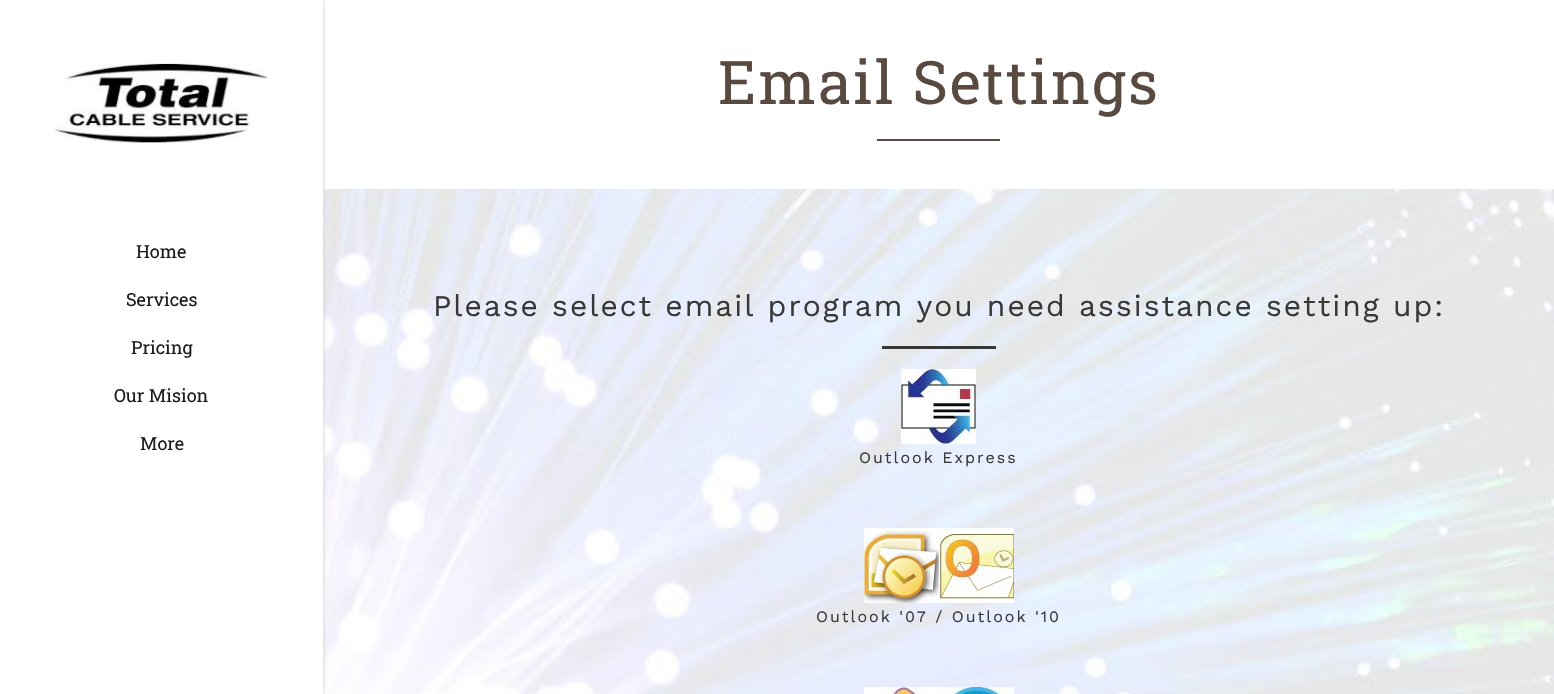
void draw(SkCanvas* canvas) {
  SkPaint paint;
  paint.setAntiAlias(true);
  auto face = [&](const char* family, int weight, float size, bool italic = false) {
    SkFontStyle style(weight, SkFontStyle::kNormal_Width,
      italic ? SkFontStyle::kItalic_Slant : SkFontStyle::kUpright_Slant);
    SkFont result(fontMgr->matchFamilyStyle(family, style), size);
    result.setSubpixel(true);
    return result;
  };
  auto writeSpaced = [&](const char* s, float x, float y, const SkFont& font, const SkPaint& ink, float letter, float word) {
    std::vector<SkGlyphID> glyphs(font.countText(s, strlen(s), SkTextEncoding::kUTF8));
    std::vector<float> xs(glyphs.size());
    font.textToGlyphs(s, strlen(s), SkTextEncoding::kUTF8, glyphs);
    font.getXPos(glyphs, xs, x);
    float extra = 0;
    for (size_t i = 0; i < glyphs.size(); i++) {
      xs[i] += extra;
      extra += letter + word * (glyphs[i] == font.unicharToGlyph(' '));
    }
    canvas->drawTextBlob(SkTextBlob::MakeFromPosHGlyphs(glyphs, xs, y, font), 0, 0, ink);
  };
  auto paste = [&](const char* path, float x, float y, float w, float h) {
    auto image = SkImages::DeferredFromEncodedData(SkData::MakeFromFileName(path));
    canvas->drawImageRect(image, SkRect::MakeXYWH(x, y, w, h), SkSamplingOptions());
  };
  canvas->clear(0xffffffff);
  paste("img/2.png", 323, 189, 1231, 505);
  canvas->save();
  canvas->clipRect(SkRect::MakeXYWH(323, 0, 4, 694));
  paint.setColor(0xffdbdbdb);
  paint.setMaskFilter(SkMaskFilter::MakeBlur(kNormal_SkBlurStyle, 1.5f));
  canvas->drawRect(SkRect::MakeXYWH(1, 1, 323, 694), paint);
  paint.setMaskFilter(nullptr);
  canvas->restore();
  paste("img/1.png", 55, 63, 213, 80);
  paint.setColor(0xff584a41);
  canvas->drawRect(SkRect::MakeXYWH(877, 139, 123, 2), paint);
  paint.setColor(0xff383838);
  canvas->drawRect(SkRect::MakeXYWH(882, 346, 114, 3), paint);
  paste("img/3.png", 901, 369, 75, 75);
  paste("img/4.png", 864, 528, 75, 75);
  paste("img/5.png", 939, 528, 75, 75);
  paste("img/6.png", 864, 687, 75, 7);
  paste("img/7.png", 939, 687, 75, 7);
  auto f0 = face("Roboto Slab", 400, 18);
  paint.setColor(0xff1c1c1c);
  {
    const struct { const char* s; float x, y; } items[] = {
      {"Home", 136, 258},
      {"Services", 126, 306},
      {"Pricing", 131, 354},
      {"Our Mision", 114, 402},
      {"More", 140, 450},
    };
    for (auto [s, x, y] : items) {
      canvas->drawString(s, x, y, f0, paint);
    }
  }
  auto f1 = face("Roboto Slab", 400, 60);
  paint.setColor(0xff584a41);
  writeSpaced("Email Settings", 718, 104, f1, paint, 2, 0);
  auto f2 = face("Work Sans", 400, 30);
  paint.setColor(0xff383838);
  writeSpaced("Please select email program you need assistance setting up:", 433, 316, f2, paint, 2, 0);
  auto f3 = face("Work Sans", 400, 16);
  writeSpaced("Outlook Express", 859, 463, f3, paint, 2, 0);
  writeSpaced("Outlook '07 / Outlook '10", 816, 622, f3, paint, 2, 0);
}
